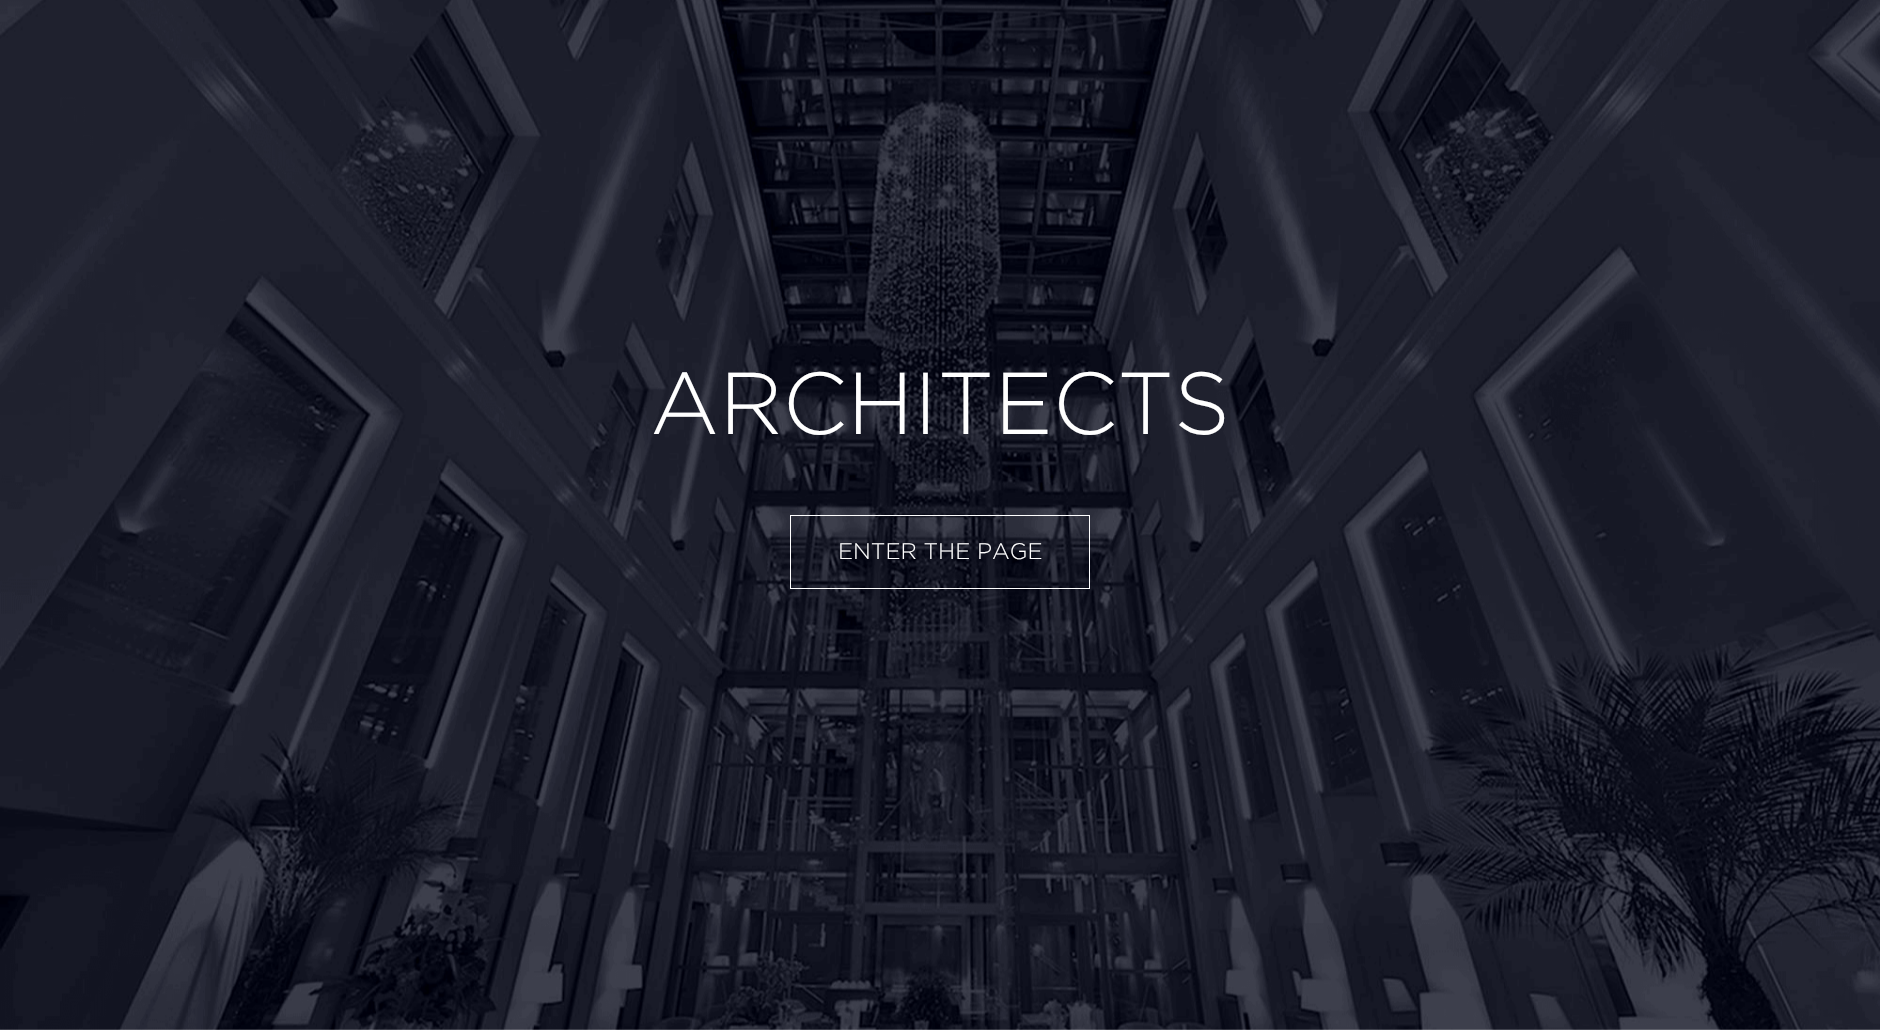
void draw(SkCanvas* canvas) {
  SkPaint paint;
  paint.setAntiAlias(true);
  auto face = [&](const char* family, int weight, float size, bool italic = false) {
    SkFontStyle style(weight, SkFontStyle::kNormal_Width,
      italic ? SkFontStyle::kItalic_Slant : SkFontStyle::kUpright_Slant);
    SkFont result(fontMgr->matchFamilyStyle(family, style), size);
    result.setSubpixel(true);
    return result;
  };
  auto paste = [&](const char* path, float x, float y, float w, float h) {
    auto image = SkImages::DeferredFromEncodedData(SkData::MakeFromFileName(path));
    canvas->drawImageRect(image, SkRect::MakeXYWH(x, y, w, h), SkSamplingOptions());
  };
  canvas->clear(0xffffffff);
  paste("img/1.png", 0, 0, 1880, 1030);
  paint.setStroke(true);
  paint.setStrokeWidth(1);
  paint.setColor(0xffffffff);
  canvas->drawRect(SkRect::MakeXYWH(790.5f, 515.5f, 299, 73), paint);
  auto f0 = face("Gotham", 300, 87.5f);
  paint.setStroke(false);
  canvas->drawString("ARCHITECTS", 650, 434, f0, paint);
  auto f1 = face("Gotham", 300, 22.5f);
  canvas->drawString("ENTER THE PAGE", 838, 559, f1, paint);
}
